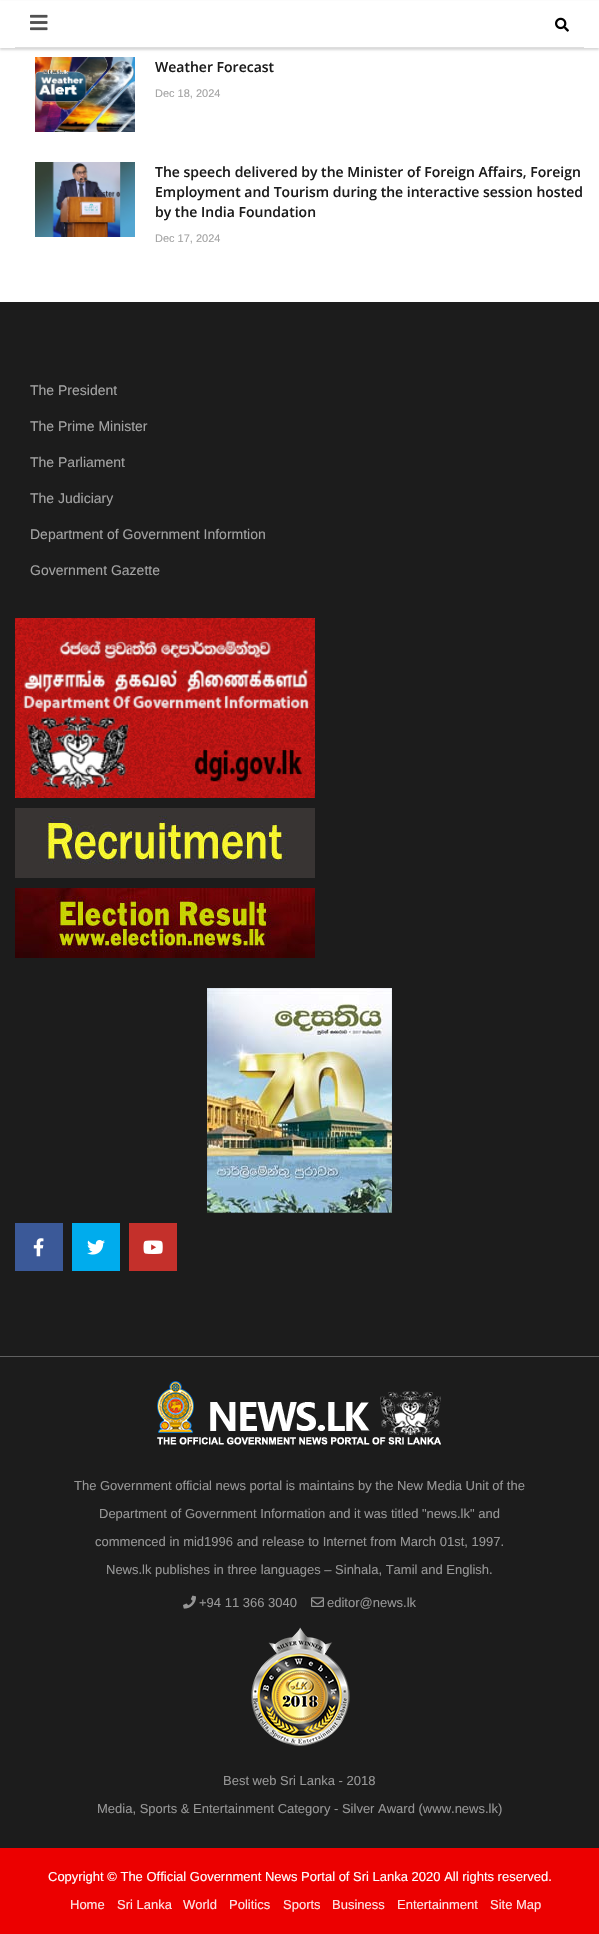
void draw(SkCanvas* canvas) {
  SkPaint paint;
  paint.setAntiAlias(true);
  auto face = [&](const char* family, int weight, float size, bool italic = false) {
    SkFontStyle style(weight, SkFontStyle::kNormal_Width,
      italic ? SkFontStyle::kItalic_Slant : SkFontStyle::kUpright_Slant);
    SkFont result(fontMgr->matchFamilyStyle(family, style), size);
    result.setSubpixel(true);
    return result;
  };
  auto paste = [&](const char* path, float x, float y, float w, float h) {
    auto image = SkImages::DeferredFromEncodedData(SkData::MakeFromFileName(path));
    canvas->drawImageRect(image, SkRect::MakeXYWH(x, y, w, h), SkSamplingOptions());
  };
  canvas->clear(0xffffffff);
  paint.setColor(0x26000000);
  paint.setMaskFilter(SkMaskFilter::MakeBlur(kNormal_SkBlurStyle, 1));
  canvas->drawRect(SkRect::MakeXYWH(0, 2, 599, 48), paint);
  paint.setMaskFilter(nullptr);
  paint.setColor(0xffffffff);
  canvas->drawRect(SkRect::MakeXYWH(0, 1, 599, 47), paint);
  paint.setColor(0xffdedede);
  canvas->drawRect(SkRect::MakeXYWH(15, 47, 569, 1), paint);
  paste("img/1.png", 30, 14, 18, 17);
  paste("img/2.png", 555, 17, 14, 15);
  paste("img/3.png", 35, 57, 100, 75);
  paste("img/4.png", 35, 162, 100, 75);
  paint.setColor(0xff1c1c1c);
  canvas->drawRect(SkRect::MakeXYWH(0, 302, 599, 1054), paint);
  paste("img/5.png", 15, 618, 300, 180);
  paste("img/6.png", 15, 808, 300, 70);
  paste("img/7.png", 15, 888, 300, 70);
  paste("img/8.png", 207, 988, 185, 225);
  paint.setColor(0xff3b5998);
  canvas->drawRect(SkRect::MakeXYWH(15, 1223, 48, 48), paint);
  paste("img/9.png", 33, 1238, 11, 19);
  paint.setColor(0xff00aced);
  canvas->drawRect(SkRect::MakeXYWH(72, 1223, 48, 48), paint);
  paste("img/10.png", 87, 1239, 18, 16);
  paint.setColor(0xffc4302b);
  canvas->drawRect(SkRect::MakeXYWH(129, 1223, 48, 48), paint);
  paste("img/11.png", 143, 1240, 20, 14);
  paint.setColor(0xff1c1c1c);
  canvas->drawRect(SkRect::MakeXYWH(0, 1357, 599, 491), paint);
  paint.setColor(0xff606060);
  canvas->drawRect(SkRect::MakeXYWH(0, 1356, 599, 1), paint);
  paste("img/12.png", 157, 1381, 284, 64);
  paste("img/13.png", 183, 1595, 13, 14);
  paste("img/14.png", 311, 1597, 13, 10);
  paste("img/15.png", 251, 1627, 99, 119);
  paint.setColor(0xffec0000);
  canvas->drawRect(SkRect::MakeXYWH(0, 1848, 599, 86), paint);
  auto f0 = face("Open Sans", 600, 14);
  paint.setColor(0xff1c1c1c);
  canvas->drawString("Weather Forecast", 155, 72, f0, paint);
  auto f1 = face("Liberation Sans", 400, 11);
  paint.setColor(0xffa3a3a3);
  canvas->drawString("Dec 18, 2024", 155, 97, f1, paint);
  paint.setColor(0xff1c1c1c);
  {
    const struct { const char* s; float x, y; } items[] = {
      {"The speech delivered by the Minister of Foreign Affairs, Foreign", 155, 177},
      {"Employment and Tourism during the interactive session hosted", 155, 197},
      {"by the India Foundation", 155, 217},
    };
    for (auto [s, x, y] : items) {
      canvas->drawString(s, x, y, f0, paint);
    }
  }
  paint.setColor(0xffa3a3a3);
  canvas->drawString("Dec 17, 2024", 155, 242, f1, paint);
  auto f2 = face("Liberation Sans", 400, 14);
  {
    const struct { const char* s; float x, y; } items[] = {
      {"The President", 30, 395},
      {"The Prime Minister", 30, 431},
      {"The Parliament", 30, 467},
      {"The Judiciary", 30, 503},
      {"Department of Government Informtion", 30, 539},
      {"Government Gazette", 30, 575},
    };
    for (auto [s, x, y] : items) {
      canvas->drawString(s, x, y, f2, paint);
    }
  }
  auto f3 = face("Liberation Sans", 400, 13);
  paint.setColor(0xff969696);
  {
    const struct { const char* s; float x, y; } items[] = {
      {"The Government official news portal is maintains by the New Media Unit of the", 74, 1490},
      {"Department of Government Information and it was titled \"news.lk\" and", 99, 1518},
      {"commenced in mid1996 and release to Internet from March 01st, 1997.", 95, 1546},
      {"News.lk publishes in three languages – Sinhala, Tamil and English.", 106, 1574},
      {"+94 11 366 3040", 199, 1607},
      {"editor@news.lk", 327, 1607},
      {"Best web Sri Lanka - 2018", 223, 1785},
      {"Media, Sports & Entertainment Category - Silver Award (www.news.lk)", 97, 1813},
    };
    for (auto [s, x, y] : items) {
      canvas->drawString(s, x, y, f3, paint);
    }
  }
  paint.setColor(0xffffffff);
  canvas->drawString("Copyright © The Official Government News Portal of Sri Lanka 2020 All rights reserved.", 48, 1881, f3, paint);
  paint.setColor(0xfffde6e6);
  {
    const struct { const char* s; float x, y; } items[] = {
      {"Home", 70, 1909},
      {"Sri Lanka", 117, 1909},
      {"World", 183, 1909},
      {"Politics", 229, 1909},
      {"Sports", 283, 1909},
      {"Business", 332, 1909},
      {"Entertainment", 397, 1909},
      {"Site Map", 490, 1909},
    };
    for (auto [s, x, y] : items) {
      canvas->drawString(s, x, y, f3, paint);
    }
  }
}
